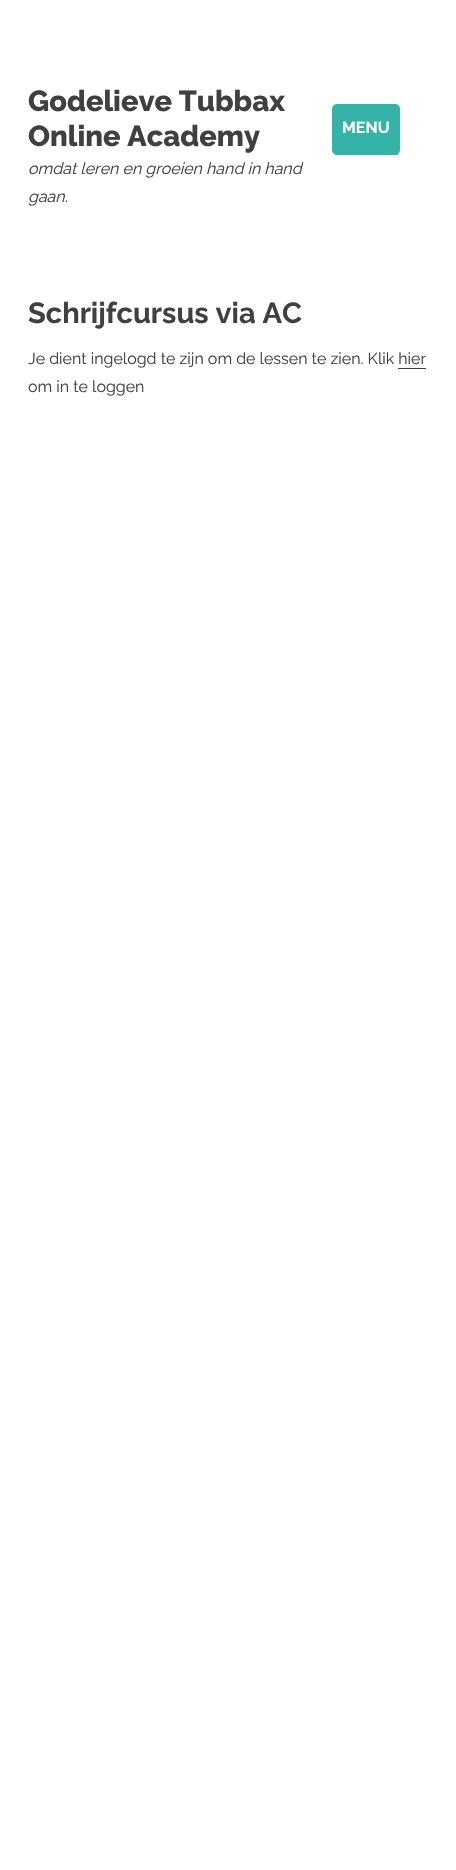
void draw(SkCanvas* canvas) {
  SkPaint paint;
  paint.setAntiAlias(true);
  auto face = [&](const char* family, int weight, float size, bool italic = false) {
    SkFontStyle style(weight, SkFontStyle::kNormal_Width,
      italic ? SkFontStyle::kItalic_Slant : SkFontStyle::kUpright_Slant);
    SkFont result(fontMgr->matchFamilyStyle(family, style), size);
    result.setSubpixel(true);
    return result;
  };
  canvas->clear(0xffffffff);
  paint.setColor(0xff35b3a8);
  canvas->drawRoundRect(SkRect::MakeXYWH(332, 104, 68, 51), 5, 5, paint);
  canvas->drawRect(SkRect::MakeXYWH(335, 154, 63, 1), paint);
  paint.setColor(0xff404040);
  canvas->drawRect(SkRect::MakeXYWH(398, 368, 28, 1), paint);
  auto f0 = face("Raleway", 800, 29);
  canvas->drawString("Godelieve Tubbax", 28, 111, f0, paint);
  canvas->drawString("Online Academy", 28, 146, f0, paint);
  auto f1 = face("Raleway", 400, 16, true);
  canvas->drawString("omdat leren en groeien hand in hand", 28, 174, f1, paint);
  canvas->drawString("gaan.", 28, 202, f1, paint);
  auto f2 = face("Raleway", 700, 16);
  paint.setColor(0xffffffff);
  canvas->drawString("MENU", 342, 133, f2, paint);
  auto f3 = face("Raleway", 700, 29);
  paint.setColor(0xff404040);
  canvas->drawString("Schrijfcursus via AC", 28, 323, f3, paint);
  auto f4 = face("Raleway", 400, 16);
  canvas->drawString("Je dient ingelogd te zijn om de lessen te zien. Klik hier", 28, 364, f4, paint);
  canvas->drawString("om in te loggen", 28, 392, f4, paint);
}
